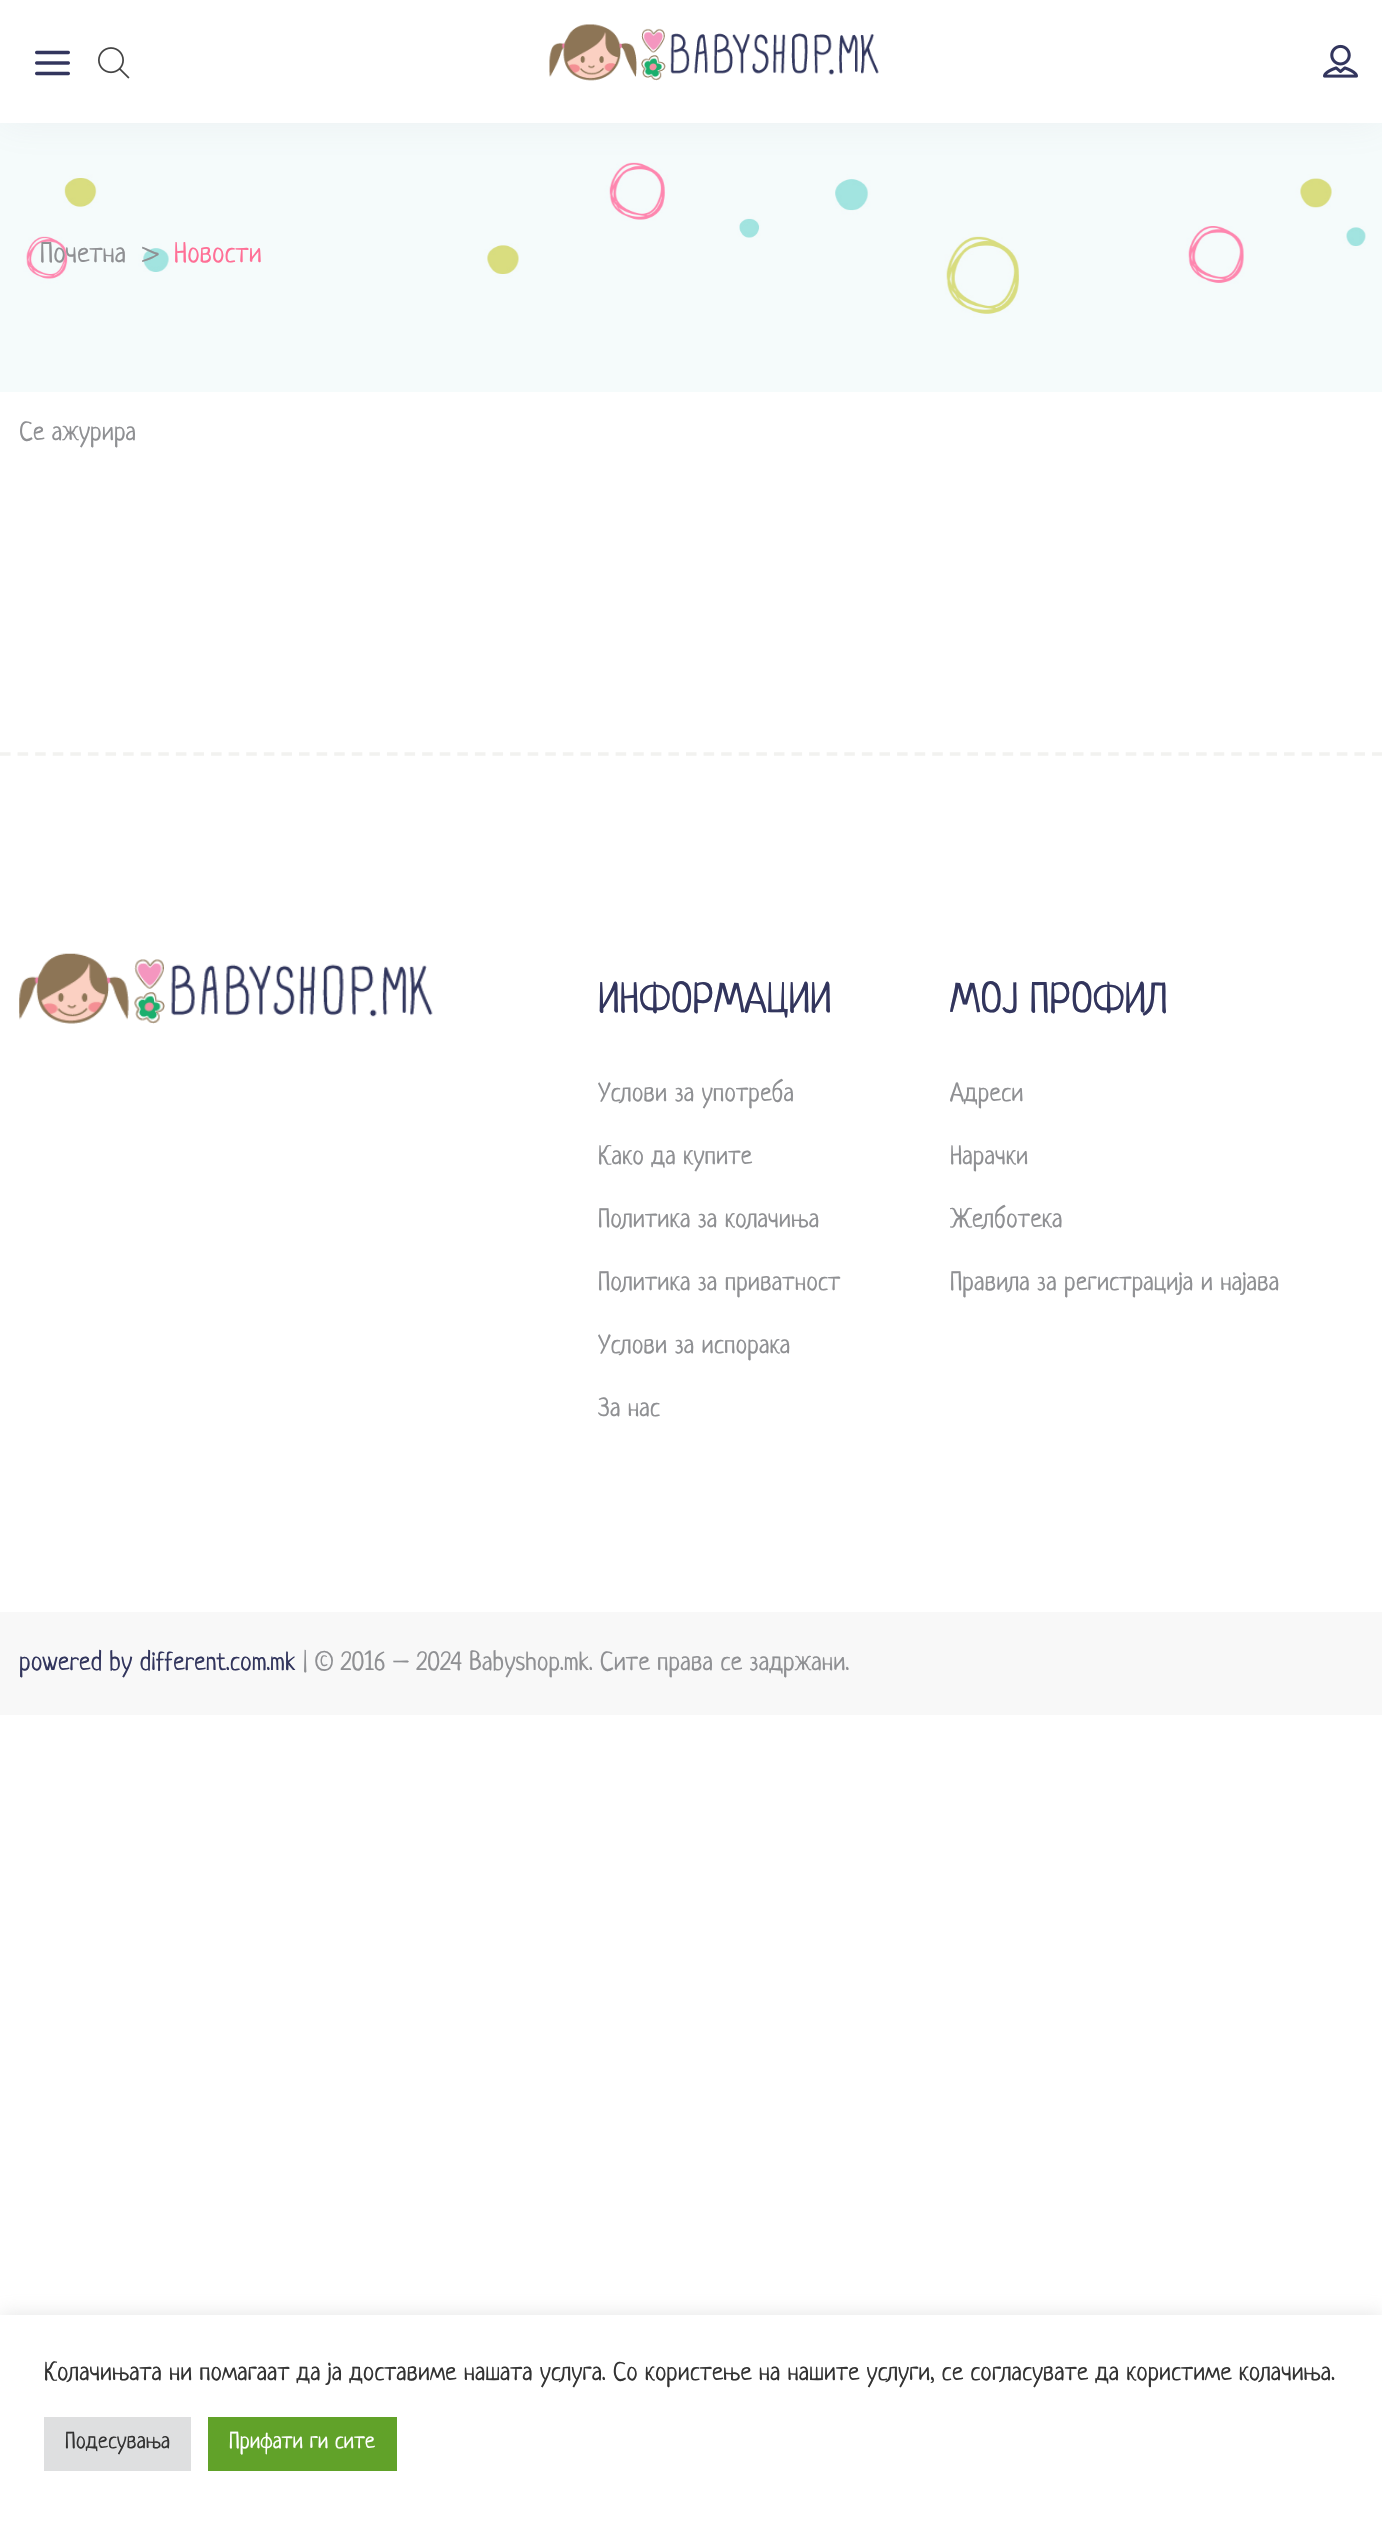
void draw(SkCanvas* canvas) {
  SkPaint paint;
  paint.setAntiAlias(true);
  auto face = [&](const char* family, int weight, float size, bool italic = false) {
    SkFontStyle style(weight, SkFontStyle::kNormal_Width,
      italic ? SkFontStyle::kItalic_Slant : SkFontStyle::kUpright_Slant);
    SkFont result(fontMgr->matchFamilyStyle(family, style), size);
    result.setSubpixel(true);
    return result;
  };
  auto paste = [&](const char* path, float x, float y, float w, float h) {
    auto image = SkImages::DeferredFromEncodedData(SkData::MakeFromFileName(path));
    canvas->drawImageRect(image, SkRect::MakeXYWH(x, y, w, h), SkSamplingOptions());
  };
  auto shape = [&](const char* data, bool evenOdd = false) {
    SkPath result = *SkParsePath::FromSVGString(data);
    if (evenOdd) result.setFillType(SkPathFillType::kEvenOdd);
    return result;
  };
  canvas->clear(0xffffffff);
  paste("img/5.png", 0, 123, 1382, 269);
  paint.setColor(0x17958897);
  paint.setMaskFilter(SkMaskFilter::MakeBlur(kNormal_SkBlurStyle, 18.5f));
  canvas->drawRect(SkRect::MakeXYWH(0, 0, 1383, 123), paint);
  paint.setMaskFilter(nullptr);
  paint.setColor(0xffffffff);
  canvas->drawRect(SkRect::MakeXYWH(0, 0, 1382, 123), paint);
  paste("img/1.png", 35, 50, 35, 26);
  paste("img/2.png", 98, 47, 32, 32);
  paste("img/3.png", 549, 24, 330, 57);
  paste("img/4.png", 1323, 44, 35, 34);
  paint.setStroke(true);
  paint.setStrokeWidth(3.5f);
  paint.setColor(0xfff2f2f0);
  paint.setPathEffect(SkDashPathEffect::Make({{10.5f, 7.09f}}, 0));
  canvas->drawPath(shape("M0 754H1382.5"), paint);
  paint.setPathEffect(nullptr);
  paste("img/6.png", 19, 953, 414, 71);
  paint.setStroke(false);
  paint.setColor(0xfff8f8f8);
  canvas->drawRect(SkRect::MakeXYWH(0, 1612, 1382, 103), paint);
  paint.setColor(0x4dacabab);
  paint.setMaskFilter(SkMaskFilter::MakeBlur(kNormal_SkBlurStyle, 9));
  canvas->drawRect(SkRect::MakeXYWH(0, 2314, 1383, 208), paint);
  paint.setMaskFilter(nullptr);
  {
    const struct { float x, y, w, h; SkColor color; } items[] = {
      {0, 2315, 1382, 207, 0xffffffff},
      {44, 2417, 147, 54, 0xffdedfe0},
      {208, 2417, 189, 54, 0xff61a229},
    };
    for (auto [x, y, w, h, color] : items) {
      paint.setColor(color);
      canvas->drawRect(SkRect::MakeXYWH(x, y, w, h), paint);
    }
  }
  auto f0 = face("Neucha", 400, 28);
  paint.setColor(0xff8f9093);
  canvas->drawString("Почетна", 40, 262, f0, paint);
  canvas->drawString(">", 142, 262, f0, paint);
  paint.setColor(0xffff6f96);
  canvas->drawString("Новости", 174, 262, f0, paint);
  auto f1 = face("Neucha", 400, 26.25f);
  paint.setColor(0xff8f9093);
  canvas->drawString("Се ажурира", 19, 440, f1, paint);
  auto f2 = face("Neucha", 400, 42);
  paint.setColor(0xff32355d);
  canvas->drawString("ИНФОРМАЦИИ", 598, 1012, f2, paint);
  paint.setColor(0xff8f9093);
  {
    const struct { const char* s; float x, y; } items[] = {
      {"Услови за употреба", 598, 1101},
      {"Како да купите", 598, 1164},
      {"Политика за колачиња", 598, 1227},
      {"Политика за приватност", 598, 1290},
      {"Услови за испорака", 598, 1353},
      {"За нас", 598, 1416},
    };
    for (auto [s, x, y] : items) {
      canvas->drawString(s, x, y, f1, paint);
    }
  }
  paint.setColor(0xff32355d);
  canvas->drawString("МОЈ ПРОФИЛ", 950, 1012, f2, paint);
  paint.setColor(0xff8f9093);
  canvas->drawString("Адреси", 950, 1101, f1, paint);
  canvas->drawString("Нарачки", 950, 1164, f1, paint);
  canvas->save();
  canvas->clipRect(SkRect::MakeXYWH(950, 1197, 413, 63));
  canvas->drawString("Желботека", 950, 1227, f1, paint);
  canvas->restore();
  canvas->drawString("Правила за регистрација и најава", 950, 1290, f1, paint);
  paint.setColor(0xff32355d);
  canvas->drawString("powered by different.com.mk", 19, 1670, f1, paint);
  paint.setColor(0xff8f9093);
  canvas->drawString("| © 2016 – 2024 Babyshop.mk. Сите права се задржани.", 303, 1670, f1, paint);
  auto f3 = face("Neucha", 400, 25.67f);
  paint.setColor(0xff333333);
  canvas->drawString("Колачињата ни помагаат да ја доставиме нашата услуга. Со користење на нашите услуги, се согласувате да користиме колачиња.", 44, 2380, f3, paint);
  auto f4 = face("Neucha", 400, 22.75f);
  canvas->drawString("Подесувања", 65, 2448, f4, paint);
  paint.setColor(0xffffffff);
  canvas->drawString("Прифати ги сите", 229, 2448, f4, paint);
}
